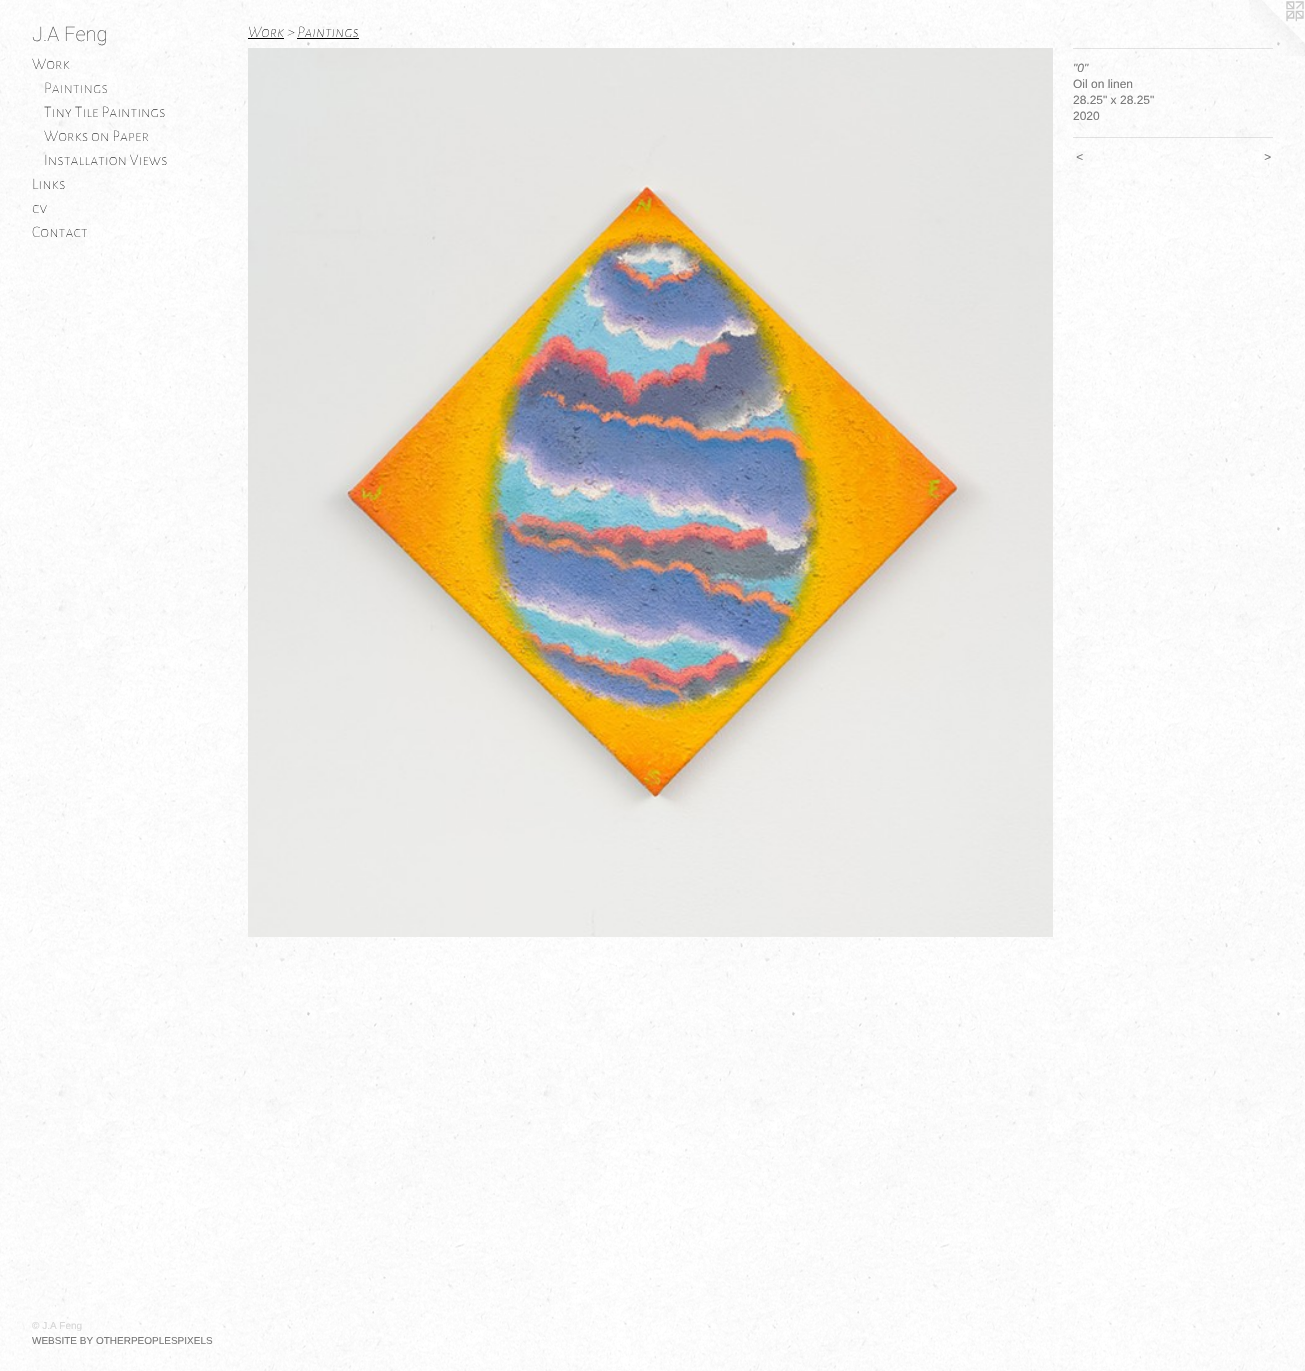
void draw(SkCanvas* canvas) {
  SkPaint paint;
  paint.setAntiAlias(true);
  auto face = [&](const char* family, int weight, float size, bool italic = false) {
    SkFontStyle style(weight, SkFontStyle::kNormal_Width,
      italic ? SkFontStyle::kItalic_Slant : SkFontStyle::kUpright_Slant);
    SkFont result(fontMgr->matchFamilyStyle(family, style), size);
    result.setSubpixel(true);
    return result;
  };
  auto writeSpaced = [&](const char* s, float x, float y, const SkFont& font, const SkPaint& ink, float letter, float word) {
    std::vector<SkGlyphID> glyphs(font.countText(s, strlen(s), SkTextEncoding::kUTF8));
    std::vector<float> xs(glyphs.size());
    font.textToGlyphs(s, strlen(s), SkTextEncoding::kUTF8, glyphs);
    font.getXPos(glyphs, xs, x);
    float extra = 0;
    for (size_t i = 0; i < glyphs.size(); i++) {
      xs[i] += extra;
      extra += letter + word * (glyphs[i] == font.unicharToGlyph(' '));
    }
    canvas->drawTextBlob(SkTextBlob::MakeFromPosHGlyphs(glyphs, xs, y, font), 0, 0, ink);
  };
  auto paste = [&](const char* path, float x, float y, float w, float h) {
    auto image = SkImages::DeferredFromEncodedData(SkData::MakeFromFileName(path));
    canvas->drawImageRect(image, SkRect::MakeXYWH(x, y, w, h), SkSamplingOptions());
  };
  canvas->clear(0xffffffff);
  paste("img/1.png", 0, 0, 1305, 1371);
  paint.setColor(0xff000000);
  canvas->drawRect(SkRect::MakeXYWH(248, 38, 36, 1), paint);
  canvas->drawRect(SkRect::MakeXYWH(297, 38, 62, 1), paint);
  paste("img/2.png", 248, 48, 805, 889);
  paste("img/3.png", 1249, 0, 56, 56);
  paint.setColor(0x33787878);
  canvas->drawRect(SkRect::MakeXYWH(1073, 48, 200, 1), paint);
  canvas->drawRect(SkRect::MakeXYWH(1073, 137, 200, 1), paint);
  auto f0 = face("Roboto", 100, 20);
  paint.setColor(0xff525252);
  canvas->drawString("J.A Feng", 32, 41, f0, paint);
  auto f1 = face("Alegreya Sans SC", 100, 16);
  paint.setColor(0xff000000);
  canvas->drawString("Work", 32, 69, f1, paint);
  paint.setColor(0xff1a1a1a);
  canvas->drawString("Paintings", 44, 93, f1, paint);
  paint.setColor(0xff000000);
  {
    const struct { const char* s; float x, y; } items[] = {
      {"Tiny Tile Paintings", 44, 117},
      {"Works on Paper", 44, 141},
      {"Installation Views", 44, 165},
      {"Links", 32, 189},
      {"cv", 32, 213},
      {"Contact", 32, 237},
    };
    for (auto [s, x, y] : items) {
      canvas->drawString(s, x, y, f1, paint);
    }
  }
  auto f2 = face("Liberation Sans", 400, 10);
  paint.setColor(0xffd6d6d6);
  canvas->drawString("© J.A Feng", 32, 1329, f2, paint);
  paint.setColor(0xff787878);
  canvas->drawString("WEBSITE BY OTHERPEOPLESPIXELS", 32, 1344, f2, paint);
  auto f3 = face("Alegreya Sans SC", 100, 16, true);
  paint.setColor(0xff000000);
  canvas->drawString("Work > Paintings", 248, 37, f3, paint);
  auto f4 = face("Liberation Sans", 400, 12, true);
  paint.setColor(0xff787878);
  canvas->drawString("\"0\"", 1073, 72, f4, paint);
  auto f5 = face("Liberation Sans", 400, 12);
  {
    const struct { const char* s; float x, y; } items[] = {
      {"Oil on linen", 1073, 88},
      {"28.25\" x 28.25\"", 1073, 104},
      {"2020", 1073, 120},
    };
    for (auto [s, x, y] : items) {
      canvas->drawString(s, x, y, f5, paint);
    }
  }
  writeSpaced("<", 1076, 161, f4, paint, 1, 0);
  writeSpaced(">", 1264, 161, f4, paint, 1, 0);
}
